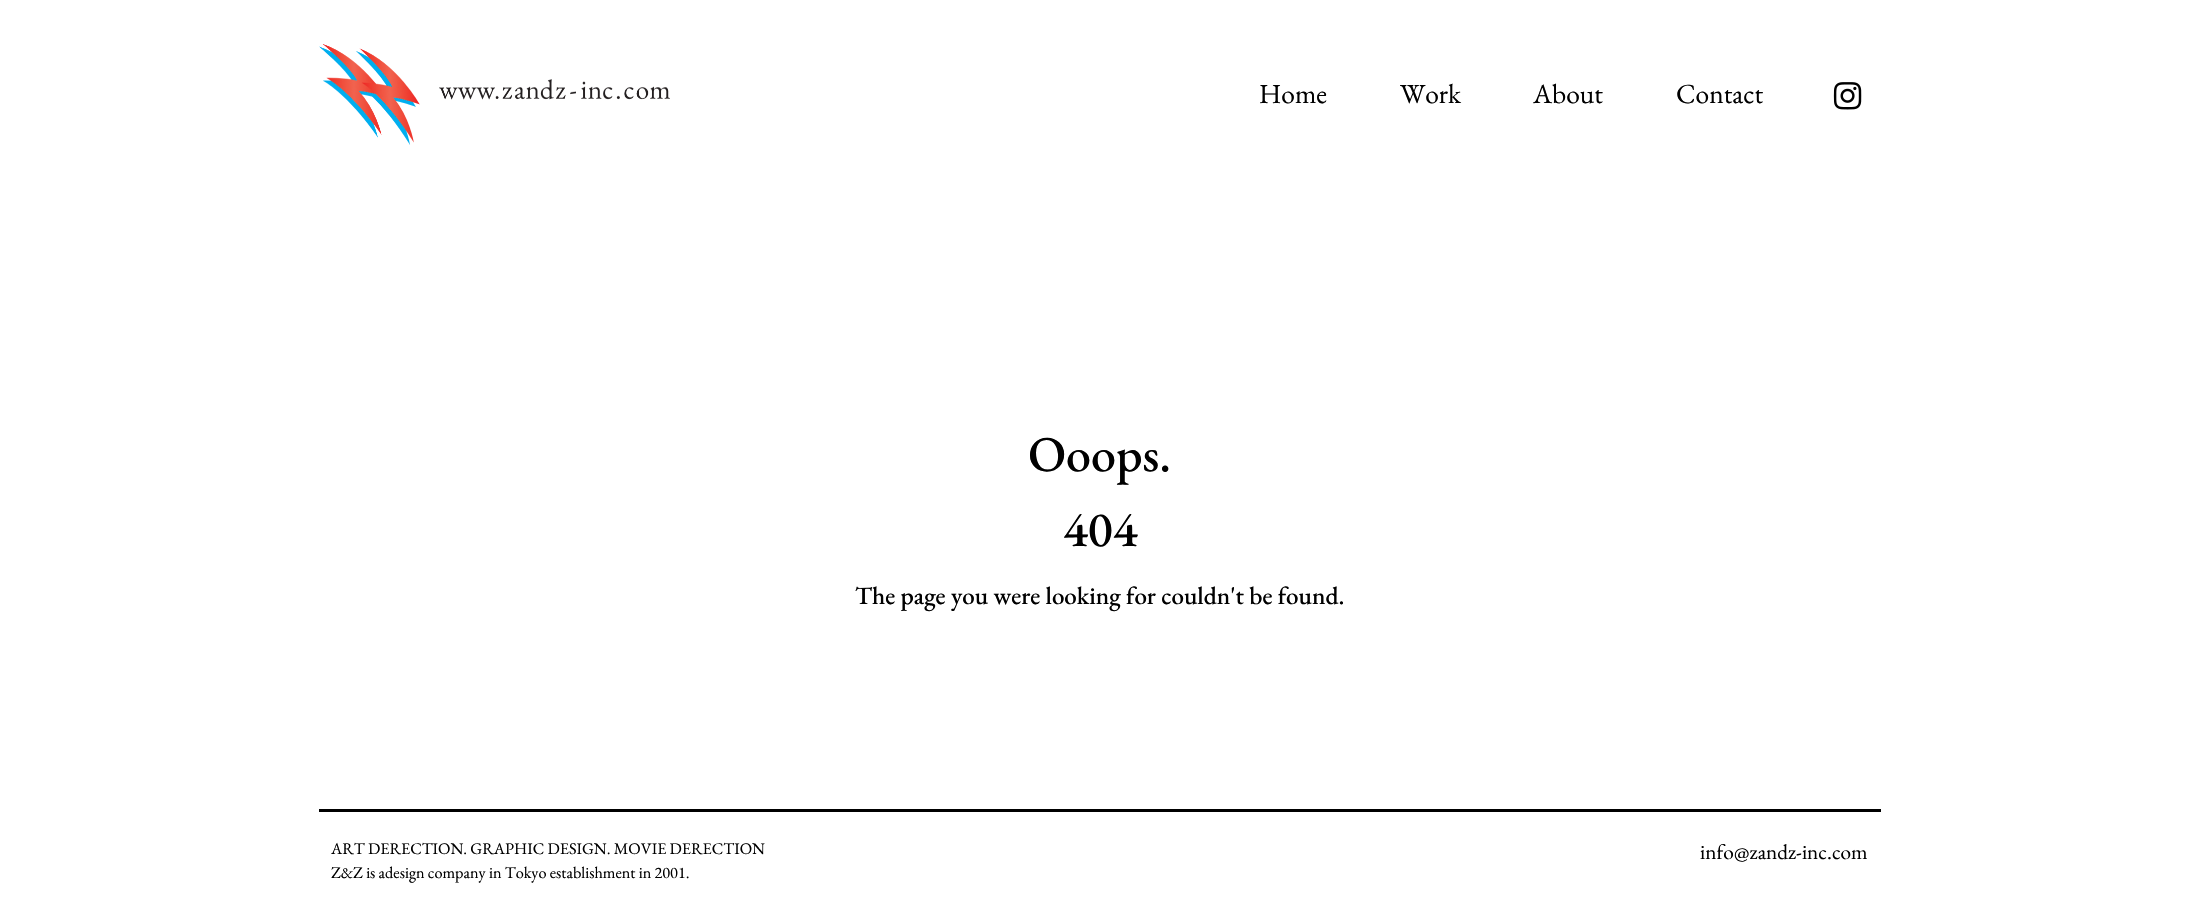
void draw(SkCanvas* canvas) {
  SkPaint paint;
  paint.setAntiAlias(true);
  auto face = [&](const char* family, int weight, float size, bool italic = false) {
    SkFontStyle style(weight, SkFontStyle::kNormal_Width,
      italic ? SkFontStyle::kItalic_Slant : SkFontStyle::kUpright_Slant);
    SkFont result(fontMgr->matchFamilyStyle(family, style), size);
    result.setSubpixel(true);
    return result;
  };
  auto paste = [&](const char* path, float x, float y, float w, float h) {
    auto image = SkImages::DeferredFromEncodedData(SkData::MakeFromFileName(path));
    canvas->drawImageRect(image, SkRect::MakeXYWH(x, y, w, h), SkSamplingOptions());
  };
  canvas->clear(0xffffffff);
  paste("img/1.png", 319, 44, 351, 101);
  paste("img/2.png", 1833, 82, 29, 28);
  paint.setColor(0xff000000);
  canvas->drawRect(SkRect::MakeXYWH(319, 809, 1562, 3), paint);
  auto f0 = face("EB Garamond", 400, 27.5f);
  {
    const struct { const char* s; float x, y; } items[] = {
      {"Home", 1259, 103},
      {"Work", 1400, 103},
      {"About", 1533, 103},
      {"Contact", 1676, 103},
    };
    for (auto [s, x, y] : items) {
      canvas->drawString(s, x, y, f0, paint);
    }
  }
  auto f1 = face("EB Garamond", 500, 50);
  canvas->drawString("Ooops.", 1028, 471, f1, paint);
  canvas->drawString("404", 1063, 546, f1, paint);
  auto f2 = face("EB Garamond", 500, 25);
  canvas->drawString("The page you were looking for couldn't be found.", 855, 604, f2, paint);
  auto f3 = face("EB Garamond", 400, 16.25f);
  canvas->drawString("ART DERECTION. GRAPHIC DESIGN. MOVIE DERECTION", 331, 854, f3, paint);
  canvas->drawString("Z&Z is adesign company in Tokyo establishment in 2001.", 331, 878, f3, paint);
  auto f4 = face("EB Garamond", 400, 21.25f);
  canvas->drawString("info@zandz-inc.com", 1700, 859, f4, paint);
}
